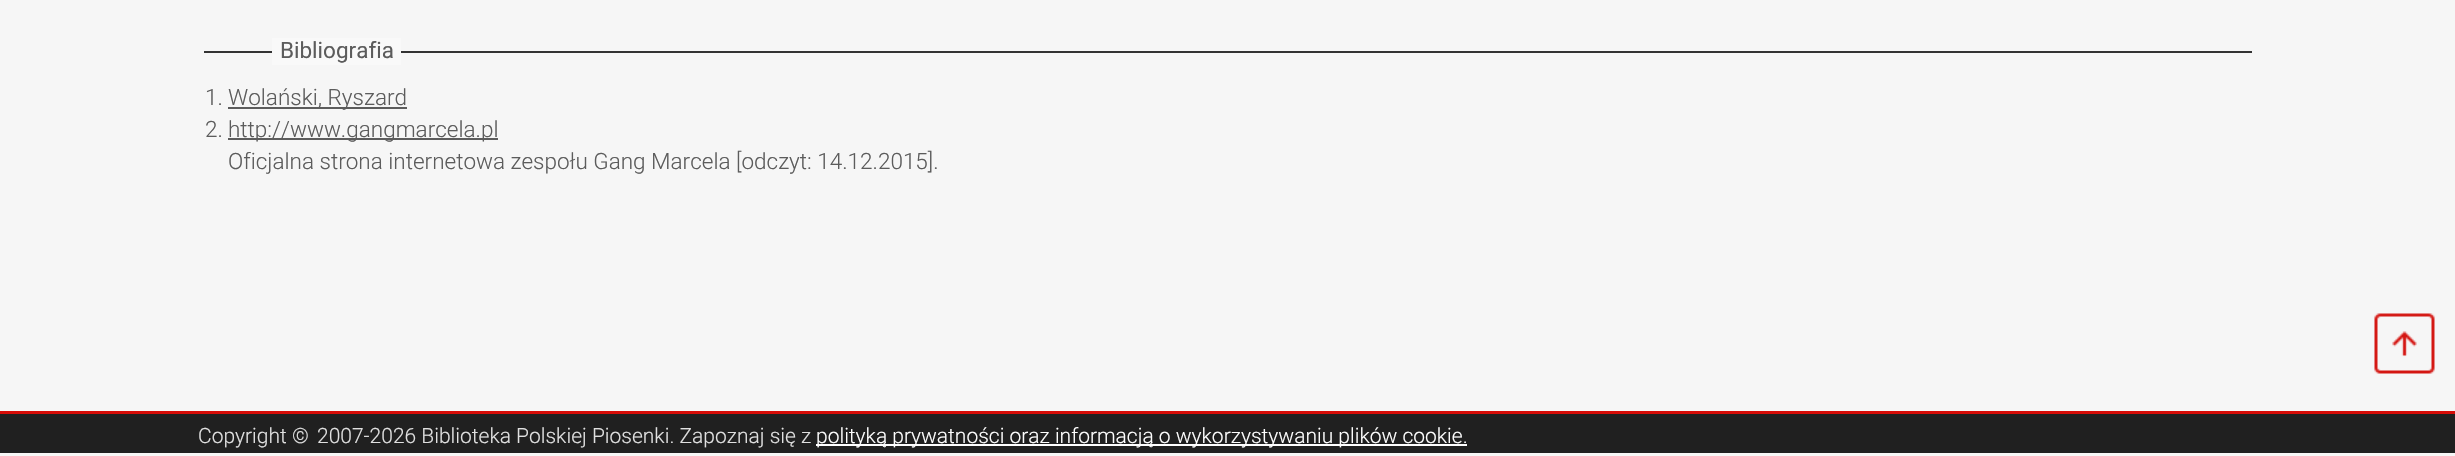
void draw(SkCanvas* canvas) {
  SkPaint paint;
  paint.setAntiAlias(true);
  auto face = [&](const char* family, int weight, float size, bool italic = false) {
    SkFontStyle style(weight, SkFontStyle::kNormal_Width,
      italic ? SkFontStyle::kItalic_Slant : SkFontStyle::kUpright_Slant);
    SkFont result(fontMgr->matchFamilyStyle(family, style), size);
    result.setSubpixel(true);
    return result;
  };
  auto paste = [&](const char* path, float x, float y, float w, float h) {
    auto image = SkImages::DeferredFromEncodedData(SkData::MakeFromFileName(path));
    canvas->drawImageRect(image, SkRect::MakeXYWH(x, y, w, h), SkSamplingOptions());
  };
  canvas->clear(0xfff6f6f6);
  {
    const struct { float x, y, w, h; SkColor color; } items[] = {
      {204, 51, 2048, 2, 0xff333333},
      {272, 38, 129, 27, 0xfff9f9f9},
      {228, 107, 179, 2, 0xff5c5c5c},
      {228, 138, 270, 2, 0xff5c5c5c},
    };
    for (auto [x, y, w, h, color] : items) {
      paint.setColor(color);
      canvas->drawRect(SkRect::MakeXYWH(x, y, w, h), paint);
    }
  }
  paste("img/1.png", 2374, 313, 61, 61);
  {
    const struct { float x, y, w, h; SkColor color; } items[] = {
      {0, 414, 2455, 39, 0xff202020},
      {0, 411, 2455, 3, 0xffd60c07},
      {816, 444, 651, 2, 0xffffffff},
    };
    for (auto [x, y, w, h, color] : items) {
      paint.setColor(color);
      canvas->drawRect(SkRect::MakeXYWH(x, y, w, h), paint);
    }
  }
  auto f0 = face("Roboto", 400, 22.5f);
  paint.setColor(0xff5c5c5c);
  canvas->drawString("Bibliografia", 280, 58, f0, paint);
  auto f1 = face("Roboto", 300, 22.5f);
  {
    const struct { const char* s; float x, y; } items[] = {
      {"1.", 205, 105},
      {"Wolański, Ryszard", 228, 105},
      {"2.", 205, 137},
      {"http://www.gangmarcela.pl", 228, 137},
      {"Oficjalna strona internetowa zespołu Gang Marcela [odczyt: 14.12.2015].", 228, 169},
    };
    for (auto [s, x, y] : items) {
      canvas->drawString(s, x, y, f1, paint);
    }
  }
  auto f2 = face("Roboto", 300, 21);
  paint.setColor(0xffe0e0e0);
  canvas->drawString("Copyright ©", 198, 443, f2, paint);
  canvas->drawString("2007-2026 Biblioteka Polskiej Piosenki. Zapoznaj się z", 317, 443, f2, paint);
  paint.setColor(0xffffffff);
  canvas->drawString("polityką prywatności oraz informacją o wykorzystywaniu plików cookie.", 816, 443, f2, paint);
}
